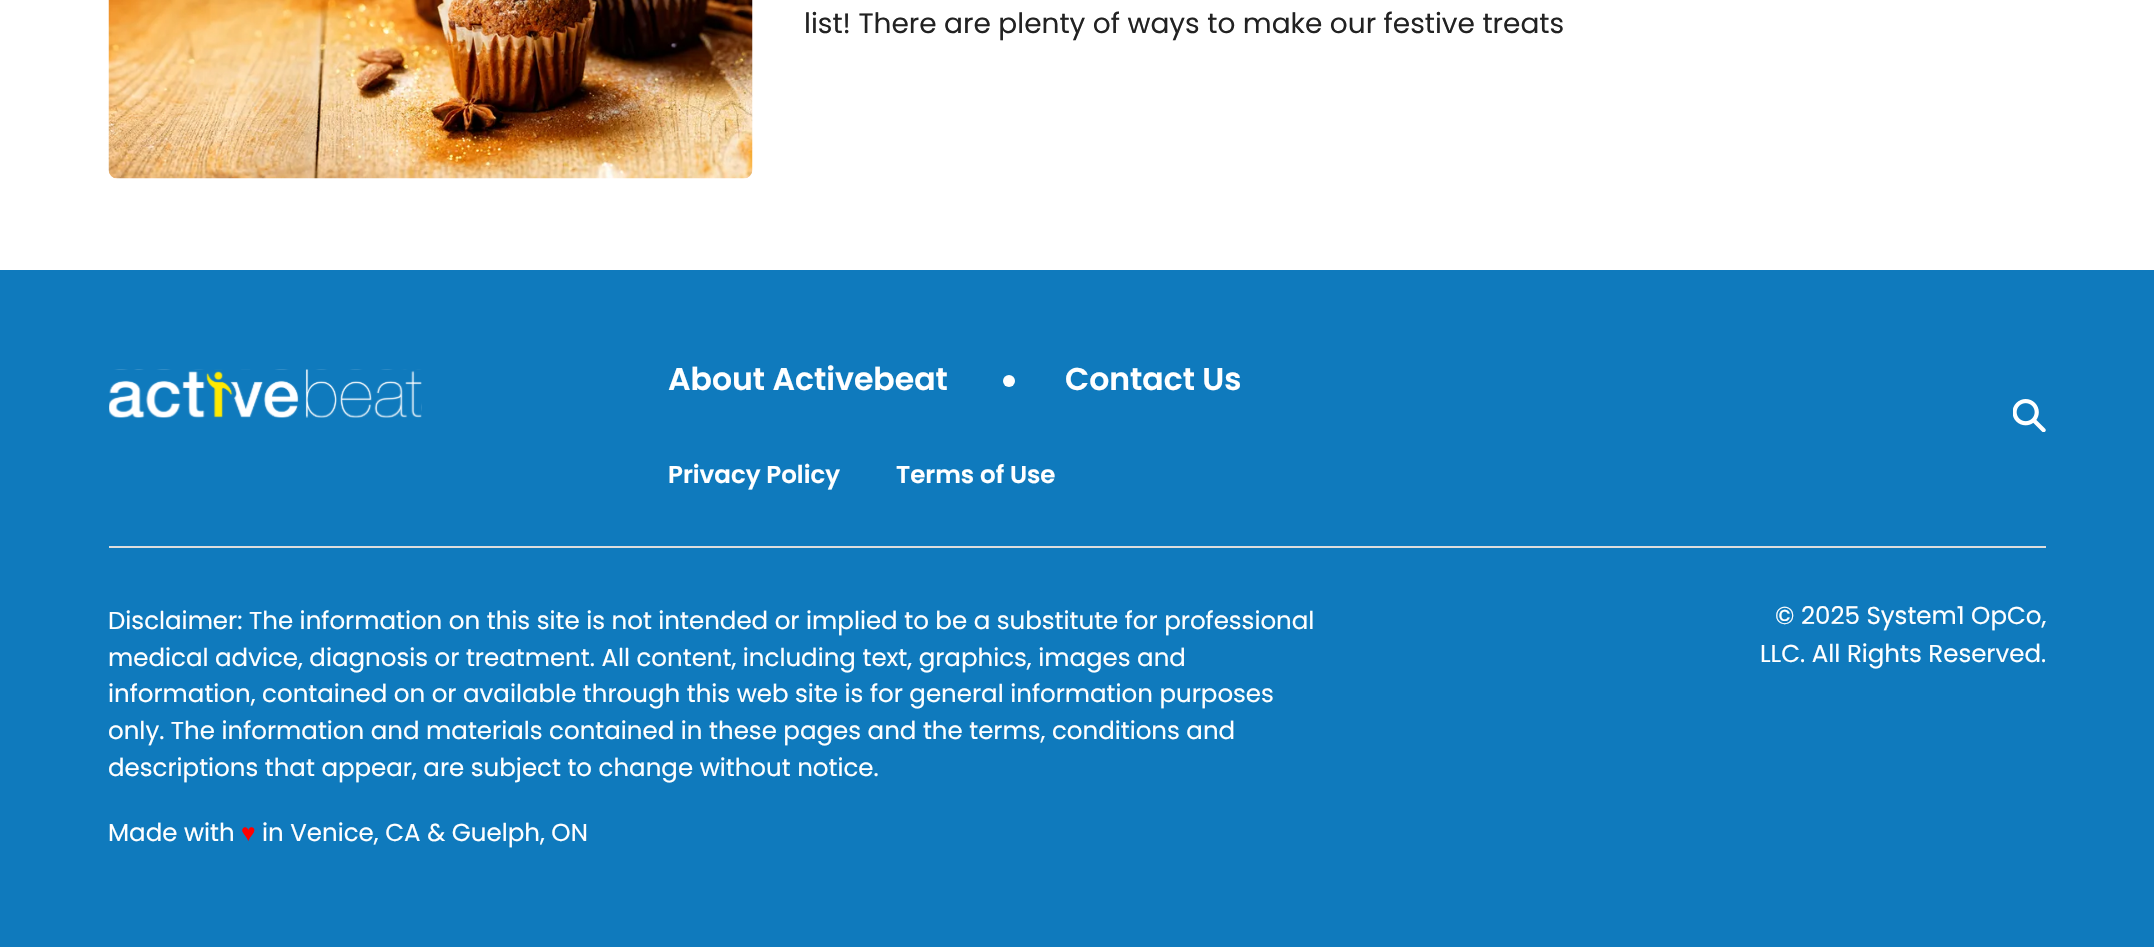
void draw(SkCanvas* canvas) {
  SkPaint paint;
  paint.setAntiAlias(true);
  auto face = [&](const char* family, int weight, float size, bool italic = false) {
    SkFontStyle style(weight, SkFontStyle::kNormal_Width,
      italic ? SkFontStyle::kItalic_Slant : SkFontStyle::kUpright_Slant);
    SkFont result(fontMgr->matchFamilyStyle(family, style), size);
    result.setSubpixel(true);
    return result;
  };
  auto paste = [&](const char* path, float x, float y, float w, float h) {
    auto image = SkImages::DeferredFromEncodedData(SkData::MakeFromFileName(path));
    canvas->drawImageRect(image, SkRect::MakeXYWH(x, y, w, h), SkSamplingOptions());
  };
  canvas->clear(0xffffffff);
  paste("img/1.png", 108, 0, 645, 179);
  paint.setColor(0xff0f7abd);
  canvas->drawRect(SkRect::MakeXYWH(0, 270, 2154, 677), paint);
  paste("img/2.png", 109, 369, 313, 49);
  paint.setColor(0xffffffff);
  canvas->drawCircle(1009, 381, 6, paint);
  paste("img/3.png", 2013, 399, 33, 33);
  paint.setColor(0xffdddddd);
  canvas->drawRect(SkRect::MakeXYWH(109, 546, 1937, 2), paint);
  auto f0 = face("Poppins", 400, 28);
  paint.setColor(0xff222222);
  canvas->drawString("list! There are plenty of ways to make our festive treats", 804, 33, f0, paint);
  auto f1 = face("Poppins", 600, 31.5f);
  paint.setColor(0xffffffff);
  canvas->drawString("About Activebeat", 668, 390, f1, paint);
  canvas->drawString("Contact Us", 1065, 390, f1, paint);
  auto f2 = face("Poppins", 600, 24.5f);
  canvas->drawString("Privacy Policy", 668, 483, f2, paint);
  canvas->drawString("Terms of Use", 896, 483, f2, paint);
  auto f3 = face("Poppins", 400, 24.5f);
  {
    const struct { const char* s; float x, y; } items[] = {
      {"Disclaimer: The information on this site is not intended or implied to be a substitute for professional", 108, 629},
      {"medical advice, diagnosis or treatment. All content, including text, graphics, images and", 108, 666},
      {"information, contained on or available through this web site is for general information purposes", 108, 702},
      {"only. The information and materials contained in these pages and the terms, conditions and", 108, 739},
      {"descriptions that appear, are subject to change without notice.", 108, 776},
      {"Made with", 108, 841},
    };
    for (auto [s, x, y] : items) {
      canvas->drawString(s, x, y, f3, paint);
    }
  }
  auto f4 = face("Liberation Sans", 400, 24.5f);
  paint.setColor(0xffff0000);
  canvas->drawString("♥", 241, 841, f4, paint);
  paint.setColor(0xffffffff);
  {
    const struct { const char* s; float x, y; } items[] = {
      {"in Venice, CA & Guelph, ON", 262, 841},
      {"© 2025 System1 OpCo,", 1775, 624},
      {"LLC. All Rights Reserved.", 1760, 662},
    };
    for (auto [s, x, y] : items) {
      canvas->drawString(s, x, y, f3, paint);
    }
  }
}
